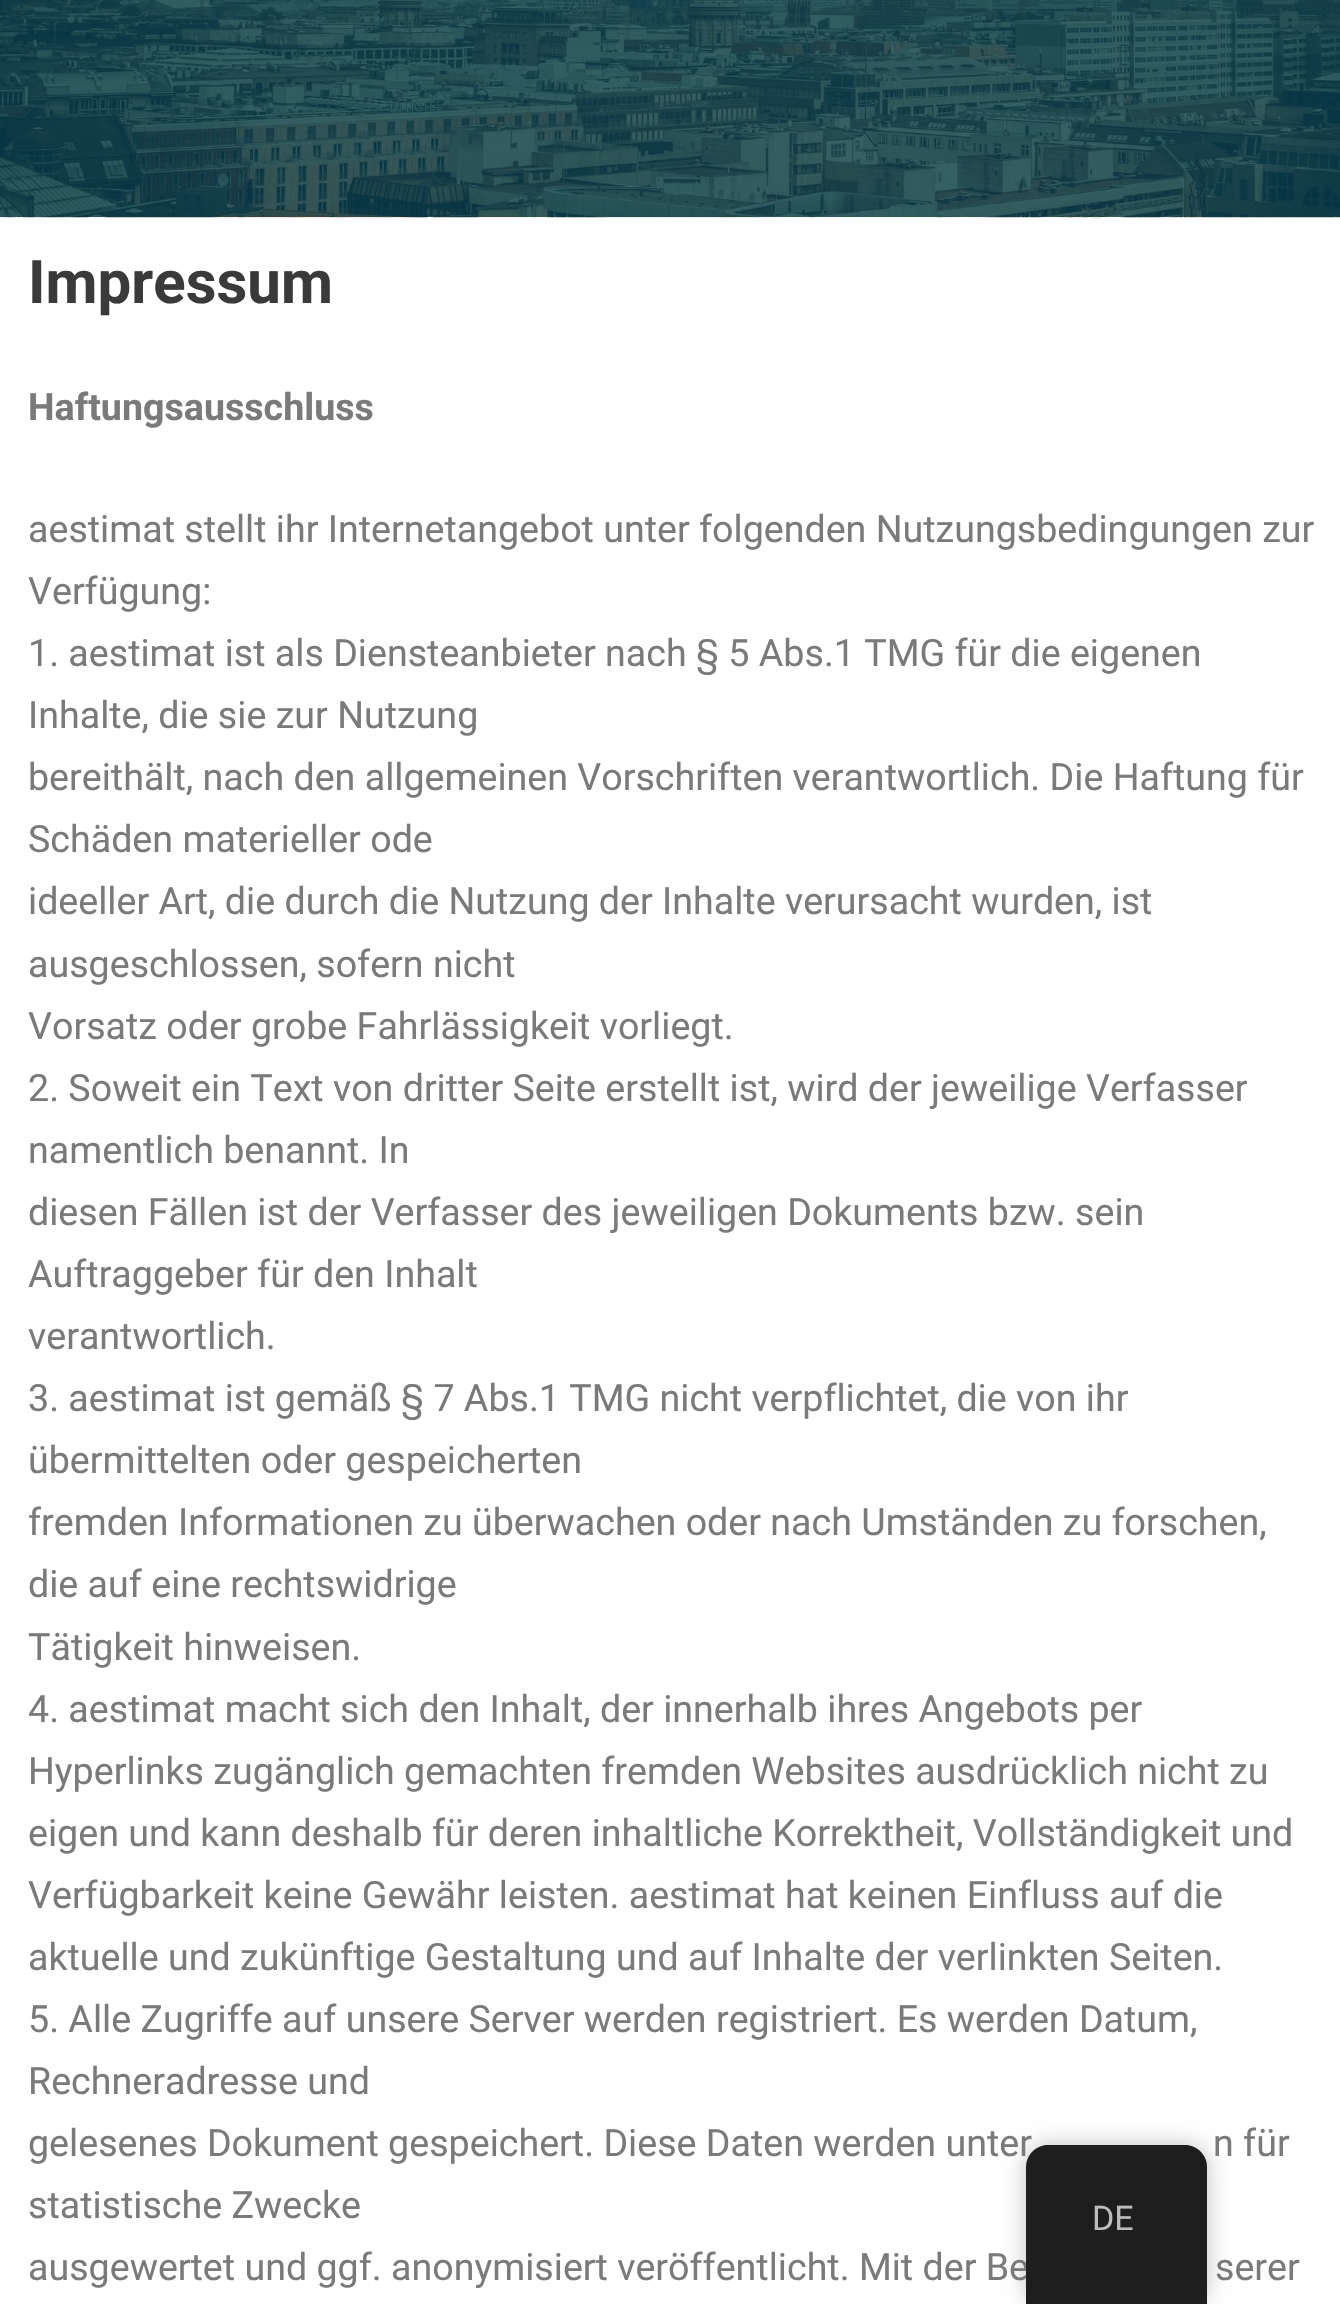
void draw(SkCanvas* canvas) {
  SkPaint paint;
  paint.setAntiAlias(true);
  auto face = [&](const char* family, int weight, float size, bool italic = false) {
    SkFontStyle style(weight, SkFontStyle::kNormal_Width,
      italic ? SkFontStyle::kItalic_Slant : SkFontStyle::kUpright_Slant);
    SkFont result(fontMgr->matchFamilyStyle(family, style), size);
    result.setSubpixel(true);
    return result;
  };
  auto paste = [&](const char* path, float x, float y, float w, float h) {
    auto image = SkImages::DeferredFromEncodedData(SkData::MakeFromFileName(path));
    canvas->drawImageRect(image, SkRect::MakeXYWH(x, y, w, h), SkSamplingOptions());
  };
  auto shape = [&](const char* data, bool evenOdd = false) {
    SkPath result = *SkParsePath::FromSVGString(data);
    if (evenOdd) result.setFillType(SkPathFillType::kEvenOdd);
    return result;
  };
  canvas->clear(0xffffffff);
  paste("img/1.png", 0, 0, 1340, 218);
  paint.setColor(0x40000000);
  paint.setMaskFilter(SkMaskFilter::MakeBlur(kNormal_SkBlurStyle, 11));
  canvas->drawRoundRect(SkRect::MakeXYWH(1026, 2145, 181, 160), 22, 22, paint);
  paint.setMaskFilter(nullptr);
  auto f0 = face("Roboto", 700, 60);
  paint.setColor(0xff3a3a3a);
  canvas->drawString("Impressum", 28, 303, f0, paint);
  auto f1 = face("Roboto", 700, 37.6f);
  paint.setColor(0xff7a7a7a);
  canvas->drawString("Haftungsausschluss", 28, 420, f1, paint);
  auto f2 = face("Roboto", 400, 37.6f);
  {
    const struct { const char* s; float x, y; } items[] = {
      {"aestimat stellt ihr Internetangebot unter folgenden Nutzungsbedingungen zur", 28, 542},
      {"Verfügung:", 28, 604},
      {"1. aestimat ist als Diensteanbieter nach § 5 Abs.1 TMG für die eigenen", 28, 666},
      {"Inhalte, die sie zur Nutzung", 28, 728},
      {"bereithält, nach den allgemeinen Vorschriften verantwortlich. Die Haftung für", 28, 790},
      {"Schäden materieller ode", 28, 852},
      {"ideeller Art, die durch die Nutzung der Inhalte verursacht wurden, ist", 28, 914},
      {"ausgeschlossen, sofern nicht", 28, 977},
      {"Vorsatz oder grobe Fahrlässigkeit vorliegt.", 28, 1039},
      {"2. Soweit ein Text von dritter Seite erstellt ist, wird der jeweilige Verfasser", 28, 1101},
      {"namentlich benannt. In", 28, 1163},
      {"diesen Fällen ist der Verfasser des jeweiligen Dokuments bzw. sein", 28, 1225},
      {"Auftraggeber für den Inhalt", 28, 1287},
      {"verantwortlich.", 28, 1349},
      {"3. aestimat ist gemäß § 7 Abs.1 TMG nicht verpflichtet, die von ihr", 28, 1411},
      {"übermittelten oder gespeicherten", 28, 1473},
      {"fremden Informationen zu überwachen oder nach Umständen zu forschen,", 28, 1535},
      {"die auf eine rechtswidrige", 28, 1597},
      {"Tätigkeit hinweisen.", 28, 1660},
      {"4. aestimat macht sich den Inhalt, der innerhalb ihres Angebots per", 28, 1722},
      {"Hyperlinks zugänglich gemachten fremden Websites ausdrücklich nicht zu", 28, 1784},
      {"eigen und kann deshalb für deren inhaltliche Korrektheit, Vollständigkeit und", 28, 1846},
      {"Verfügbarkeit keine Gewähr leisten. aestimat hat keinen Einfluss auf die", 28, 1908},
      {"aktuelle und zukünftige Gestaltung und auf Inhalte der verlinkten Seiten.", 28, 1970},
      {"5. Alle Zugriffe auf unsere Server werden registriert. Es werden Datum,", 28, 2032},
      {"Rechneradresse und", 28, 2094},
      {"gelesenes Dokument gespeichert. Diese Daten werden unter", 28, 2156},
      {"n für", 1213, 2156},
      {"statistische Zwecke", 28, 2218},
      {"ausgewertet und ggf. anonymisiert veröffentlicht. Mit der Be", 28, 2280},
      {"serer", 1215, 2280},
    };
    for (auto [s, x, y] : items) {
      canvas->drawString(s, x, y, f2, paint);
    }
  }
  paint.setColor(0xff1e1e1e);
  canvas->drawPath(shape("M1048 2145H1185C1197 2145 1207 2155 1207 2167V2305H1026V2167C1026 2155 1036 2145 1048 2145Z"), paint);
  auto f3 = face("Roboto", 400, 34);
  paint.setColor(0xffbdbdbd);
  canvas->drawString("DE", 1092, 2230, f3, paint);
}
